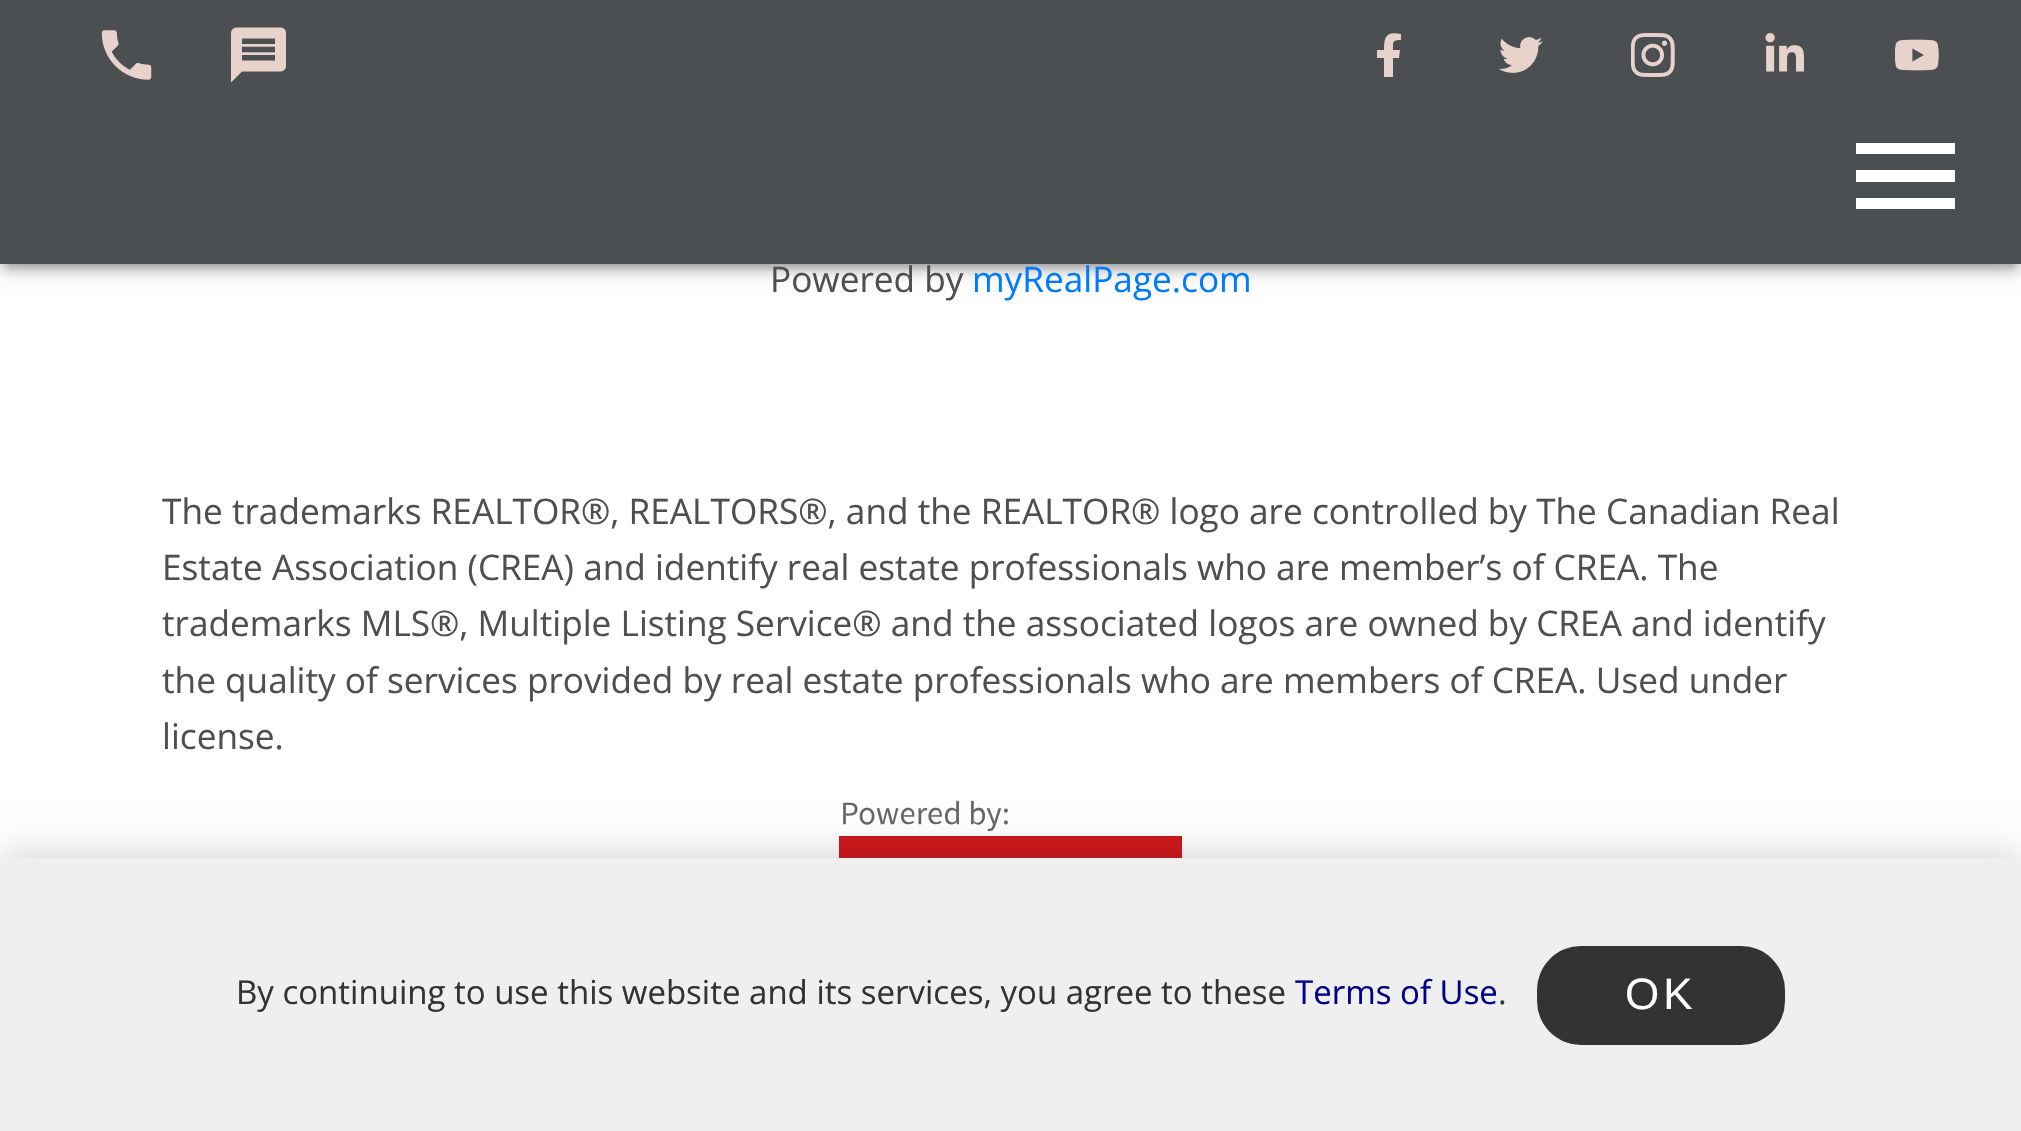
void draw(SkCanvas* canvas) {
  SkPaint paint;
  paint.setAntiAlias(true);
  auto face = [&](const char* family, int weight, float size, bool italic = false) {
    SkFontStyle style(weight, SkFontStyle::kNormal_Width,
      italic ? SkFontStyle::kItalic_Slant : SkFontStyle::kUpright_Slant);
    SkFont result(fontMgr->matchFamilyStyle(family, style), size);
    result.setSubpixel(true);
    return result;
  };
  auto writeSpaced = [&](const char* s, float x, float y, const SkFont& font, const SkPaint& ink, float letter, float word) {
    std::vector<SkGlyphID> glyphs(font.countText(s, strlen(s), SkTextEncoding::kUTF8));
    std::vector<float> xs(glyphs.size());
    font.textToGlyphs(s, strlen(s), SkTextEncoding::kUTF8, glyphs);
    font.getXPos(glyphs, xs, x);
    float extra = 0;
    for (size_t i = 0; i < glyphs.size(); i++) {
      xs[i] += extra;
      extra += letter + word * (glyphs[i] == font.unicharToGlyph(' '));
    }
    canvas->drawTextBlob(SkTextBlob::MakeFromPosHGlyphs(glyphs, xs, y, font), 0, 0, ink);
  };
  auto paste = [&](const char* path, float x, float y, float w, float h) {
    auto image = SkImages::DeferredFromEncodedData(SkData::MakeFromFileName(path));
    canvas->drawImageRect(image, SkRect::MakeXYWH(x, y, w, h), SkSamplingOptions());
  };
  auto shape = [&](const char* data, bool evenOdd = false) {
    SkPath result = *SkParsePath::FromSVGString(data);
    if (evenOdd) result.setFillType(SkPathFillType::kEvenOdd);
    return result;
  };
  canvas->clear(0xffffffff);
  paint.setColor(0x1f000000);
  paint.setMaskFilter(SkMaskFilter::MakeBlur(kNormal_SkBlurStyle, 11));
  canvas->drawRect(SkRect::MakeXYWH(0, 3, 2021, 264), paint);
  paint.setMaskFilter(nullptr);
  paint.setColor(0x24000000);
  paint.setMaskFilter(SkMaskFilter::MakeBlur(kNormal_SkBlurStyle, 5.5f));
  canvas->drawRect(SkRect::MakeXYWH(0, 8, 2021, 264), paint);
  paint.setMaskFilter(nullptr);
  paint.setColor(0x33000000);
  paint.setMaskFilter(SkMaskFilter::MakeBlur(kNormal_SkBlurStyle, 4));
  canvas->drawRect(SkRect::MakeXYWH(6, 14, 2010, 253), paint);
  paint.setMaskFilter(nullptr);
  paint.setColor(0xff4c4f51);
  canvas->drawRect(SkRect::MakeXYWH(0, 0, 2021, 264), paint);
  paste("img/1.png", 101, 30, 51, 50);
  paste("img/2.png", 231, 27, 55, 56);
  paint.setColor(0xffe7d2cc);
  canvas->drawPath(shape("M1399 58L1400 50H1393C1393 42 1392 40 1401 40V34C1386 31 1384 37 1384 50H1377V58H1384V77H1393V58Z"), paint);
  paste("img/3.png", 1499, 37, 44, 36);
  paste("img/4.png", 1631, 33, 44, 44);
  paste("img/5.png", 1765, 33, 39, 39);
  paste("img/6.png", 1895, 39, 44, 32);
  paint.setColor(0xffffffff);
  canvas->drawPath(shape("M1856 209H1955V198H1856ZM1856 182H1955V170H1856ZM1856 143V154H1955V143Z"), paint);
  paste("img/7.png", 839, 800, 343, 58);
  paint.setColor(0x33000000);
  paint.setMaskFilter(SkMaskFilter::MakeBlur(kNormal_SkBlurStyle, 20.5f));
  canvas->drawRect(SkRect::MakeXYWH(0, 858, 2021, 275), paint);
  paint.setMaskFilter(nullptr);
  paint.setColor(0xffefefef);
  canvas->drawRect(SkRect::MakeXYWH(0, 858, 2021, 273), paint);
  paint.setColor(0xff333333);
  canvas->drawRoundRect(SkRect::MakeXYWH(1537, 946, 248, 99), 44, 44, paint);
  auto f0 = face("Open Sans", 400, 35.2f);
  paint.setColor(0xff4d4f51);
  canvas->drawString("Powered by", 770, 292, f0, paint);
  paint.setColor(0xff007bff);
  canvas->drawString("myRealPage.com", 972, 292, f0, paint);
  paint.setColor(0xff4d4f51);
  {
    const struct { const char* s; float x, y; } items[] = {
      {"The trademarks REALTOR®, REALTORS®, and the REALTOR® logo are controlled by The Canadian Real", 162, 524},
      {"Estate Association (CREA) and identify real estate professionals who are member’s of CREA. The", 162, 580},
      {"trademarks MLS®, Multiple Listing Service® and the associated logos are owned by CREA and identify", 162, 636},
      {"the quality of services provided by real estate professionals who are members of CREA. Used under", 162, 693},
      {"license.", 162, 749},
    };
    for (auto [s, x, y] : items) {
      canvas->drawString(s, x, y, f0, paint);
    }
  }
  auto f1 = face("Open Sans", 400, 33);
  paint.setColor(0xff333333);
  canvas->drawString("By continuing to use this website and its services, you agree to these", 236, 1004, f1, paint);
  paint.setColor(0xff00008b);
  canvas->drawString("Terms of Use", 1295, 1004, f1, paint);
  paint.setColor(0xff333333);
  canvas->drawString(".", 1498, 1004, f1, paint);
  auto f2 = face("Liberation Sans", 400, 44);
  paint.setColor(0xffffffff);
  writeSpaced("OK", 1625, 1009, f2, paint, 4, 0);
}
